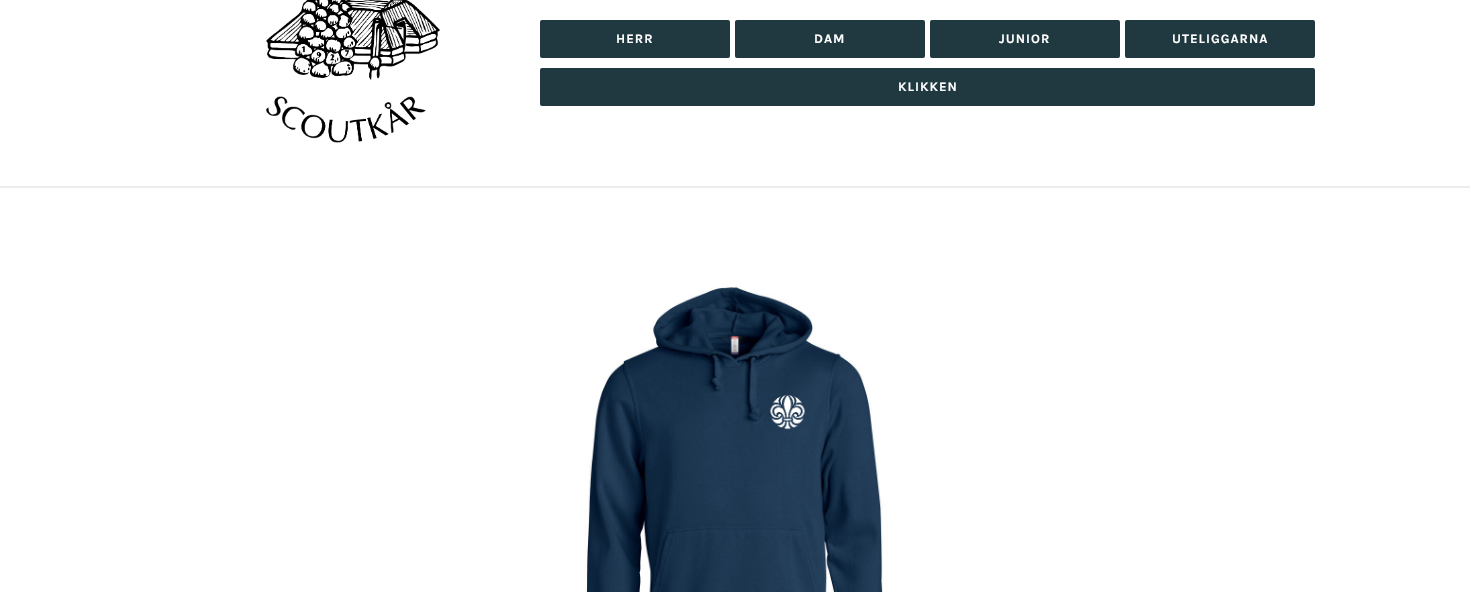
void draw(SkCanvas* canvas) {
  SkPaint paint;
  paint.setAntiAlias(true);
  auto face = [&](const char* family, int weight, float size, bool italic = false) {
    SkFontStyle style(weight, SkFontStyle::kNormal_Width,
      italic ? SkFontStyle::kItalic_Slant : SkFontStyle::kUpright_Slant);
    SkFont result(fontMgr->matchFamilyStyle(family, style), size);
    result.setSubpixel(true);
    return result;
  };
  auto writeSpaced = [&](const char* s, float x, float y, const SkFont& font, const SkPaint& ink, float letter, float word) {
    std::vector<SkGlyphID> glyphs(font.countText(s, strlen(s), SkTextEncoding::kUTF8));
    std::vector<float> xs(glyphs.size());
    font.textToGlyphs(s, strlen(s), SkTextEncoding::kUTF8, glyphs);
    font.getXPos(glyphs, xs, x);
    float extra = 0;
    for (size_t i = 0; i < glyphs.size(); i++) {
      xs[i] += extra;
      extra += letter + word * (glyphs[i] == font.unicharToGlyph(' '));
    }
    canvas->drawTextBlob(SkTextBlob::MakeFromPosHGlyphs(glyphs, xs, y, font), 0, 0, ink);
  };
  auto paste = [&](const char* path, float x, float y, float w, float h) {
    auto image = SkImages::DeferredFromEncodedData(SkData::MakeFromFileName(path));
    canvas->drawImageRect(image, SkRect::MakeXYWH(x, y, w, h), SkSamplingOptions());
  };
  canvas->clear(0xffffffff);
  paint.setColor(0xffededed);
  canvas->drawRect(SkRect::MakeXYWH(0, 186, 1470, 2), paint);
  paste("img/1.png", 266, 0, 174, 143);
  paint.setColor(0xff203940);
  canvas->drawRoundRect(SkRect::MakeXYWH(540, 20, 190, 38), 2, 2, paint);
  canvas->drawRoundRect(SkRect::MakeXYWH(735, 20, 190, 38), 2, 2, paint);
  canvas->drawRoundRect(SkRect::MakeXYWH(930, 20, 190, 38), 2, 2, paint);
  canvas->drawRoundRect(SkRect::MakeXYWH(1125, 20, 190, 38), 2, 2, paint);
  canvas->drawRoundRect(SkRect::MakeXYWH(540, 68, 775, 38), 2, 2, paint);
  paste("img/2.png", 585, 287, 298, 305);
  auto f0 = face("Karla", 700, 13);
  paint.setColor(0xffffffff);
  {
    const struct { const char* s; float x, y; } items[] = {
      {"HERR", 616, 43},
      {"DAM", 814, 43},
      {"JUNIOR", 999, 43},
      {"UTELIGGARNA", 1172, 43},
      {"KLIKKEN", 898, 91},
    };
    for (auto [s, x, y] : items) {
      writeSpaced(s, x, y, f0, paint, 1, 0);
    }
  }
}
